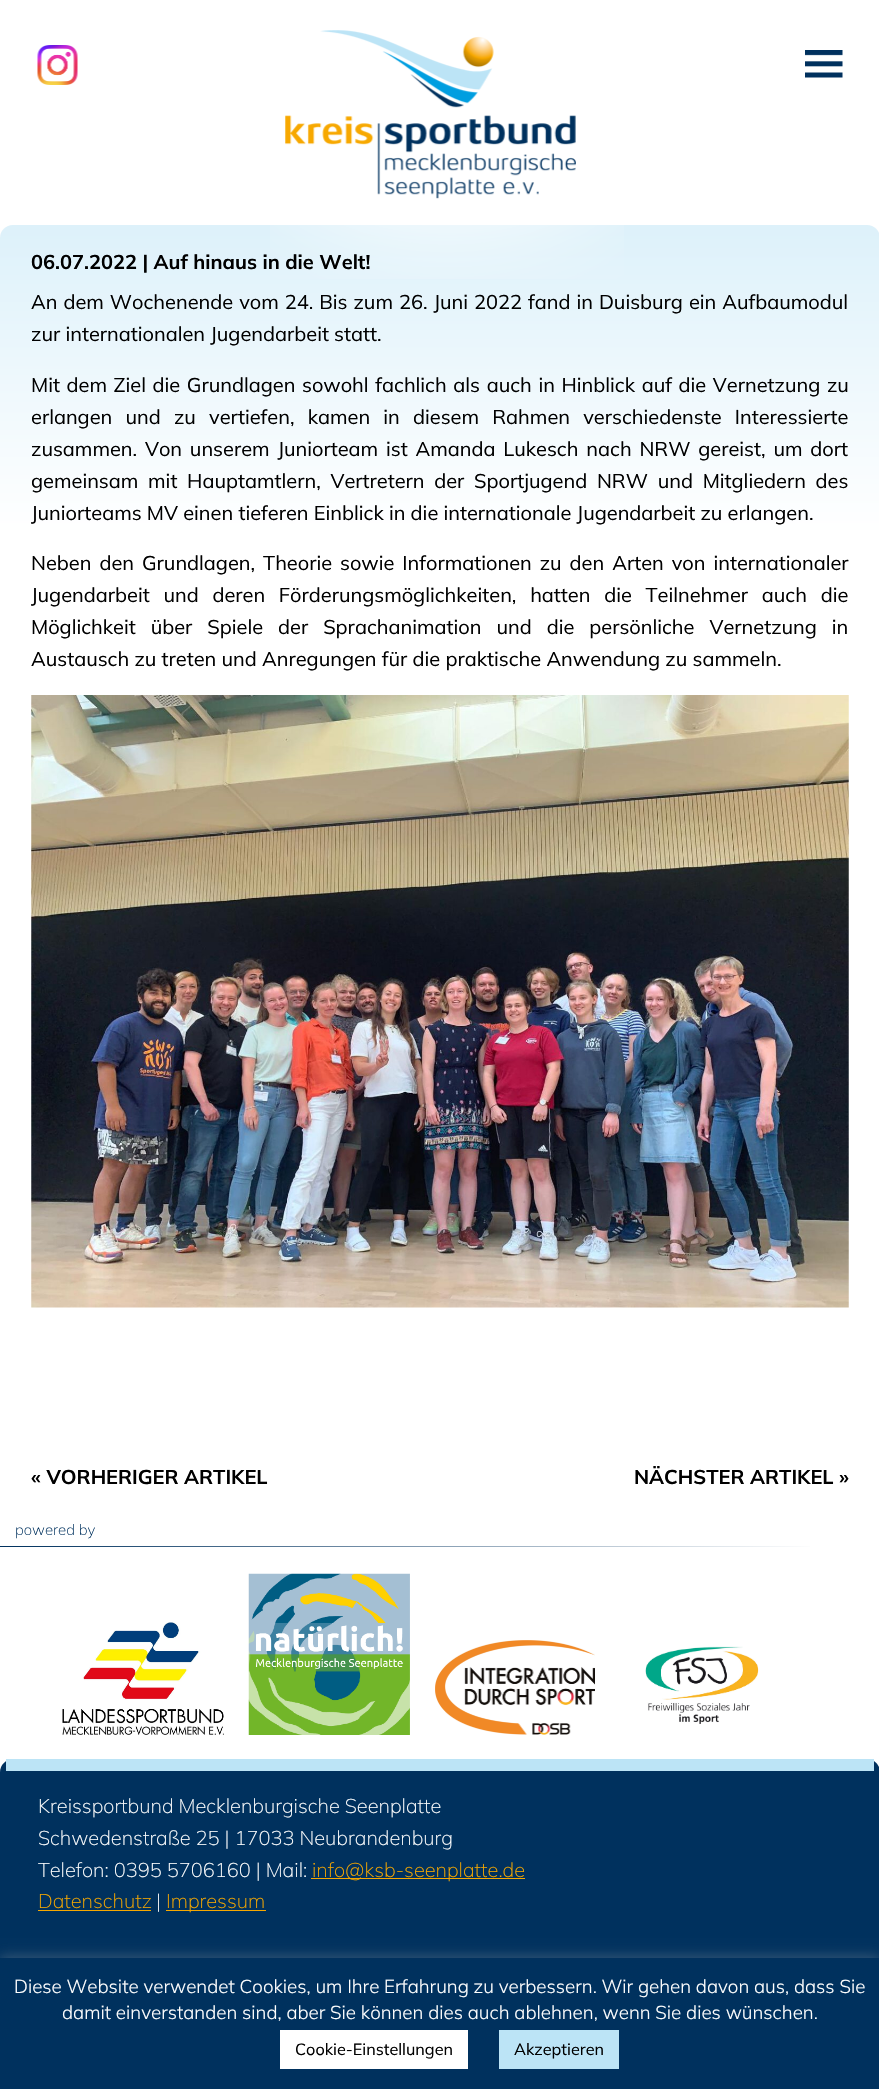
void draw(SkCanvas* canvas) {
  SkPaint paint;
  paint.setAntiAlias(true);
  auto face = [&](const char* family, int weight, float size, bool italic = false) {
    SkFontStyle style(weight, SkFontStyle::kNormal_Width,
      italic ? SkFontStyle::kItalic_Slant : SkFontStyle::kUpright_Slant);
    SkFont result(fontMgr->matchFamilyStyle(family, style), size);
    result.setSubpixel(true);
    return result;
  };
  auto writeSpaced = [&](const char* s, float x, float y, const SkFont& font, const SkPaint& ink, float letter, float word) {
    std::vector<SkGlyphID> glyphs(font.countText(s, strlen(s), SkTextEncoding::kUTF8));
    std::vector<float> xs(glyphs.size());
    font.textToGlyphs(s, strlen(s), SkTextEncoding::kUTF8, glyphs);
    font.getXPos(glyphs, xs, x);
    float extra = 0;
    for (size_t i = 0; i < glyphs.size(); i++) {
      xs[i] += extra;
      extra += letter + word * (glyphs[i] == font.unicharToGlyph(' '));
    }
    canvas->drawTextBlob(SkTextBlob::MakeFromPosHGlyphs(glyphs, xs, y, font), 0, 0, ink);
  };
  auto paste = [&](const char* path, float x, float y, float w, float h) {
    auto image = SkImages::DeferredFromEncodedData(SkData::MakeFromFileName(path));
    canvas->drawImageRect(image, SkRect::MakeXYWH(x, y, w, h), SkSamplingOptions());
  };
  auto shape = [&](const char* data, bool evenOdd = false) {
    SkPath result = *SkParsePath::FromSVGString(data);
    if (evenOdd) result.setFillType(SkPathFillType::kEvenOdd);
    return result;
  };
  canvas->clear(0xffffffff);
  paste("img/1.png", 37, 45, 41, 40);
  {
    const SkColor colors[] = {0xffddf1fa, 0xffffffff};
    const float stops[] = {0, 0.24f};
    const SkPoint ends[] = {{440, 225}, {440, 1514}};
    paint.setShader(SkGradientShader::MakeLinear(ends, colors, stops, 2, SkTileMode::kClamp));
    paint.setAlpha(255);
  }
  canvas->drawRoundRect(SkRect::MakeXYWH(0, 225, 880, 1289), 13, 13, paint);
  paste("img/2.png", 270, 30, 354, 249);
  paste("img/3.png", 805, 50, 38, 28);
  paste("img/4.png", 31, 695, 818, 613);
  {
    const SkColor colors[] = {0xffffffff, 0xff00315e};
    const float stops[] = {0.07f, 1};
    const SkPoint ends[] = {{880, 1547}, {0, 1547}};
    paint.setShader(SkGradientShader::MakeLinear(ends, colors, stops, 2, SkTileMode::kClamp));
    paint.setAlpha(255);
  }
  canvas->drawRect(SkRect::MakeXYWH(0, 1546, 810, 1), paint);
  paste("img/5.png", 62, 1622, 162, 113);
  paste("img/6.png", 248, 1573, 162, 162);
  paste("img/7.png", 435, 1640, 160, 95);
  paste("img/8.png", 645, 1646, 114, 78);
  paint.setShader(nullptr);
  paint.setColor(0xff00315e);
  canvas->drawPath(shape("M13 1759H867C874 1759 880 1765 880 1772V1978H0V1772C0 1765 6 1759 13 1759Z"), paint);
  {
    const struct { float x, y, w, h; SkColor color; } items[] = {
      {6, 1759, 868, 12, 0xffbce4f6},
      {311, 1878, 214, 1, 0xfff7a800},
      {38, 1910, 113, 1, 0xfff7a800},
      {166, 1910, 100, 1, 0xfff7a800},
    };
    for (auto [x, y, w, h, color] : items) {
      paint.setColor(color);
      canvas->drawRect(SkRect::MakeXYWH(x, y, w, h), paint);
    }
  }
  paint.setColor(0x4dacabab);
  paint.setMaskFilter(SkMaskFilter::MakeBlur(kNormal_SkBlurStyle, 6));
  canvas->drawRect(SkRect::MakeXYWH(0, 1956, 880, 133), paint);
  paint.setMaskFilter(nullptr);
  {
    const struct { float x, y, w, h; SkColor color; } items[] = {
      {0, 1958, 879, 131, 0xff00315e},
      {280, 2030, 188, 39, 0xffffffff},
      {499, 2030, 120, 39, 0xffbce4f6},
    };
    for (auto [x, y, w, h, color] : items) {
      paint.setColor(color);
      canvas->drawRect(SkRect::MakeXYWH(x, y, w, h), paint);
    }
  }
  auto f0 = face("Mulish", 700, 20);
  paint.setColor(0xff000000);
  canvas->drawString("06.07.2022 | Auf hinaus in die Welt!", 31, 269, f0, paint);
  auto f1 = face("Mulish", 400, 20);
  writeSpaced("An dem Wochenende vom 24. Bis zum 26. Juni 2022 fand in Duisburg ein Aufbaumodul", 31, 309, f1, paint, 0, 0.75f);
  canvas->drawString("zur internationalen Jugendarbeit statt.", 31, 341, f1, paint);
  writeSpaced("Mit dem Ziel die Grundlagen sowohl fachlich als auch in Hinblick auf die Vernetzung zu", 31, 392, f1, paint, 0, 1.4f);
  writeSpaced("erlangen und zu vertiefen, kamen in diesem Rahmen verschiedenste Interessierte", 31, 424, f1, paint, 0, 8);
  writeSpaced("zusammen. Von unserem Juniorteam ist Amanda Lukesch nach NRW gereist, um dort", 31, 456, f1, paint, 0, 2.6f);
  writeSpaced("gemeinsam mit Hauptamtlern, Vertretern der Sportjugend NRW und Mitgliedern des", 31, 488, f1, paint, 0, 4.5f);
  canvas->drawString("Juniorteams MV einen tieferen Einblick in die internationale Jugendarbeit zu erlangen.", 31, 520, f1, paint);
  writeSpaced("Neben den Grundlagen, Theorie sowie Informationen zu den Arten von internationaler", 31, 570, f1, paint, 0, 2.75f);
  writeSpaced("Jugendarbeit und deren Förderungsmöglichkeiten, hatten die Teilnehmer auch die", 31, 602, f1, paint, 0, 8.5f);
  writeSpaced("Möglichkeit über Spiele der Sprachanimation und die persönliche Vernetzung in", 31, 634, f1, paint, 0, 9.75f);
  canvas->drawString("Austausch zu treten und Anregungen für die praktische Anwendung zu sammeln.", 31, 666, f1, paint);
  canvas->drawString("« VORHERIGER ARTIKEL", 31, 1484, f0, paint);
  canvas->drawString("NÄCHSTER ARTIKEL »", 634, 1484, f0, paint);
  auto f2 = face("Mulish", 200, 15);
  paint.setColor(0xff00315e);
  canvas->drawString("powered by", 15, 1535, f2, paint);
  auto f3 = face("Mulish", 200, 20);
  paint.setColor(0xffffffff);
  {
    const struct { const char* s; float x, y; } items[] = {
      {"Kreissportbund Mecklenburgische Seenplatte", 38, 1813},
      {"Schwedenstraße 25 | 17033 Neubrandenburg", 38, 1845},
      {"Telefon: 0395 5706160 | Mail:", 38, 1877},
    };
    for (auto [s, x, y] : items) {
      canvas->drawString(s, x, y, f3, paint);
    }
  }
  paint.setColor(0xfff7a800);
  canvas->drawString("info@ksb-seenplatte.de", 312, 1877, f3, paint);
  canvas->drawString("Datenschutz", 38, 1908, f3, paint);
  paint.setColor(0xffffffff);
  canvas->drawString("|", 156, 1908, f3, paint);
  paint.setColor(0xfff7a800);
  canvas->drawString("Impressum", 166, 1908, f3, paint);
  auto f4 = face("Mulish", 300, 18.75f);
  paint.setColor(0xffffffff);
  canvas->drawString("Diese Website verwendet Cookies, um Ihre Erfahrung zu verbessern. Wir gehen davon aus, dass Sie", 14, 1993, f4, paint);
  canvas->drawString("damit einverstanden sind, aber Sie können dies auch ablehnen, wenn Sie dies wünschen.", 62, 2019, f4, paint);
  auto f5 = face("Mulish", 400, 16.25f);
  paint.setColor(0xff000000);
  canvas->drawString("Cookie-Einstellungen", 295, 2055, f5, paint);
  canvas->drawString("Akzeptieren", 514, 2055, f5, paint);
}
